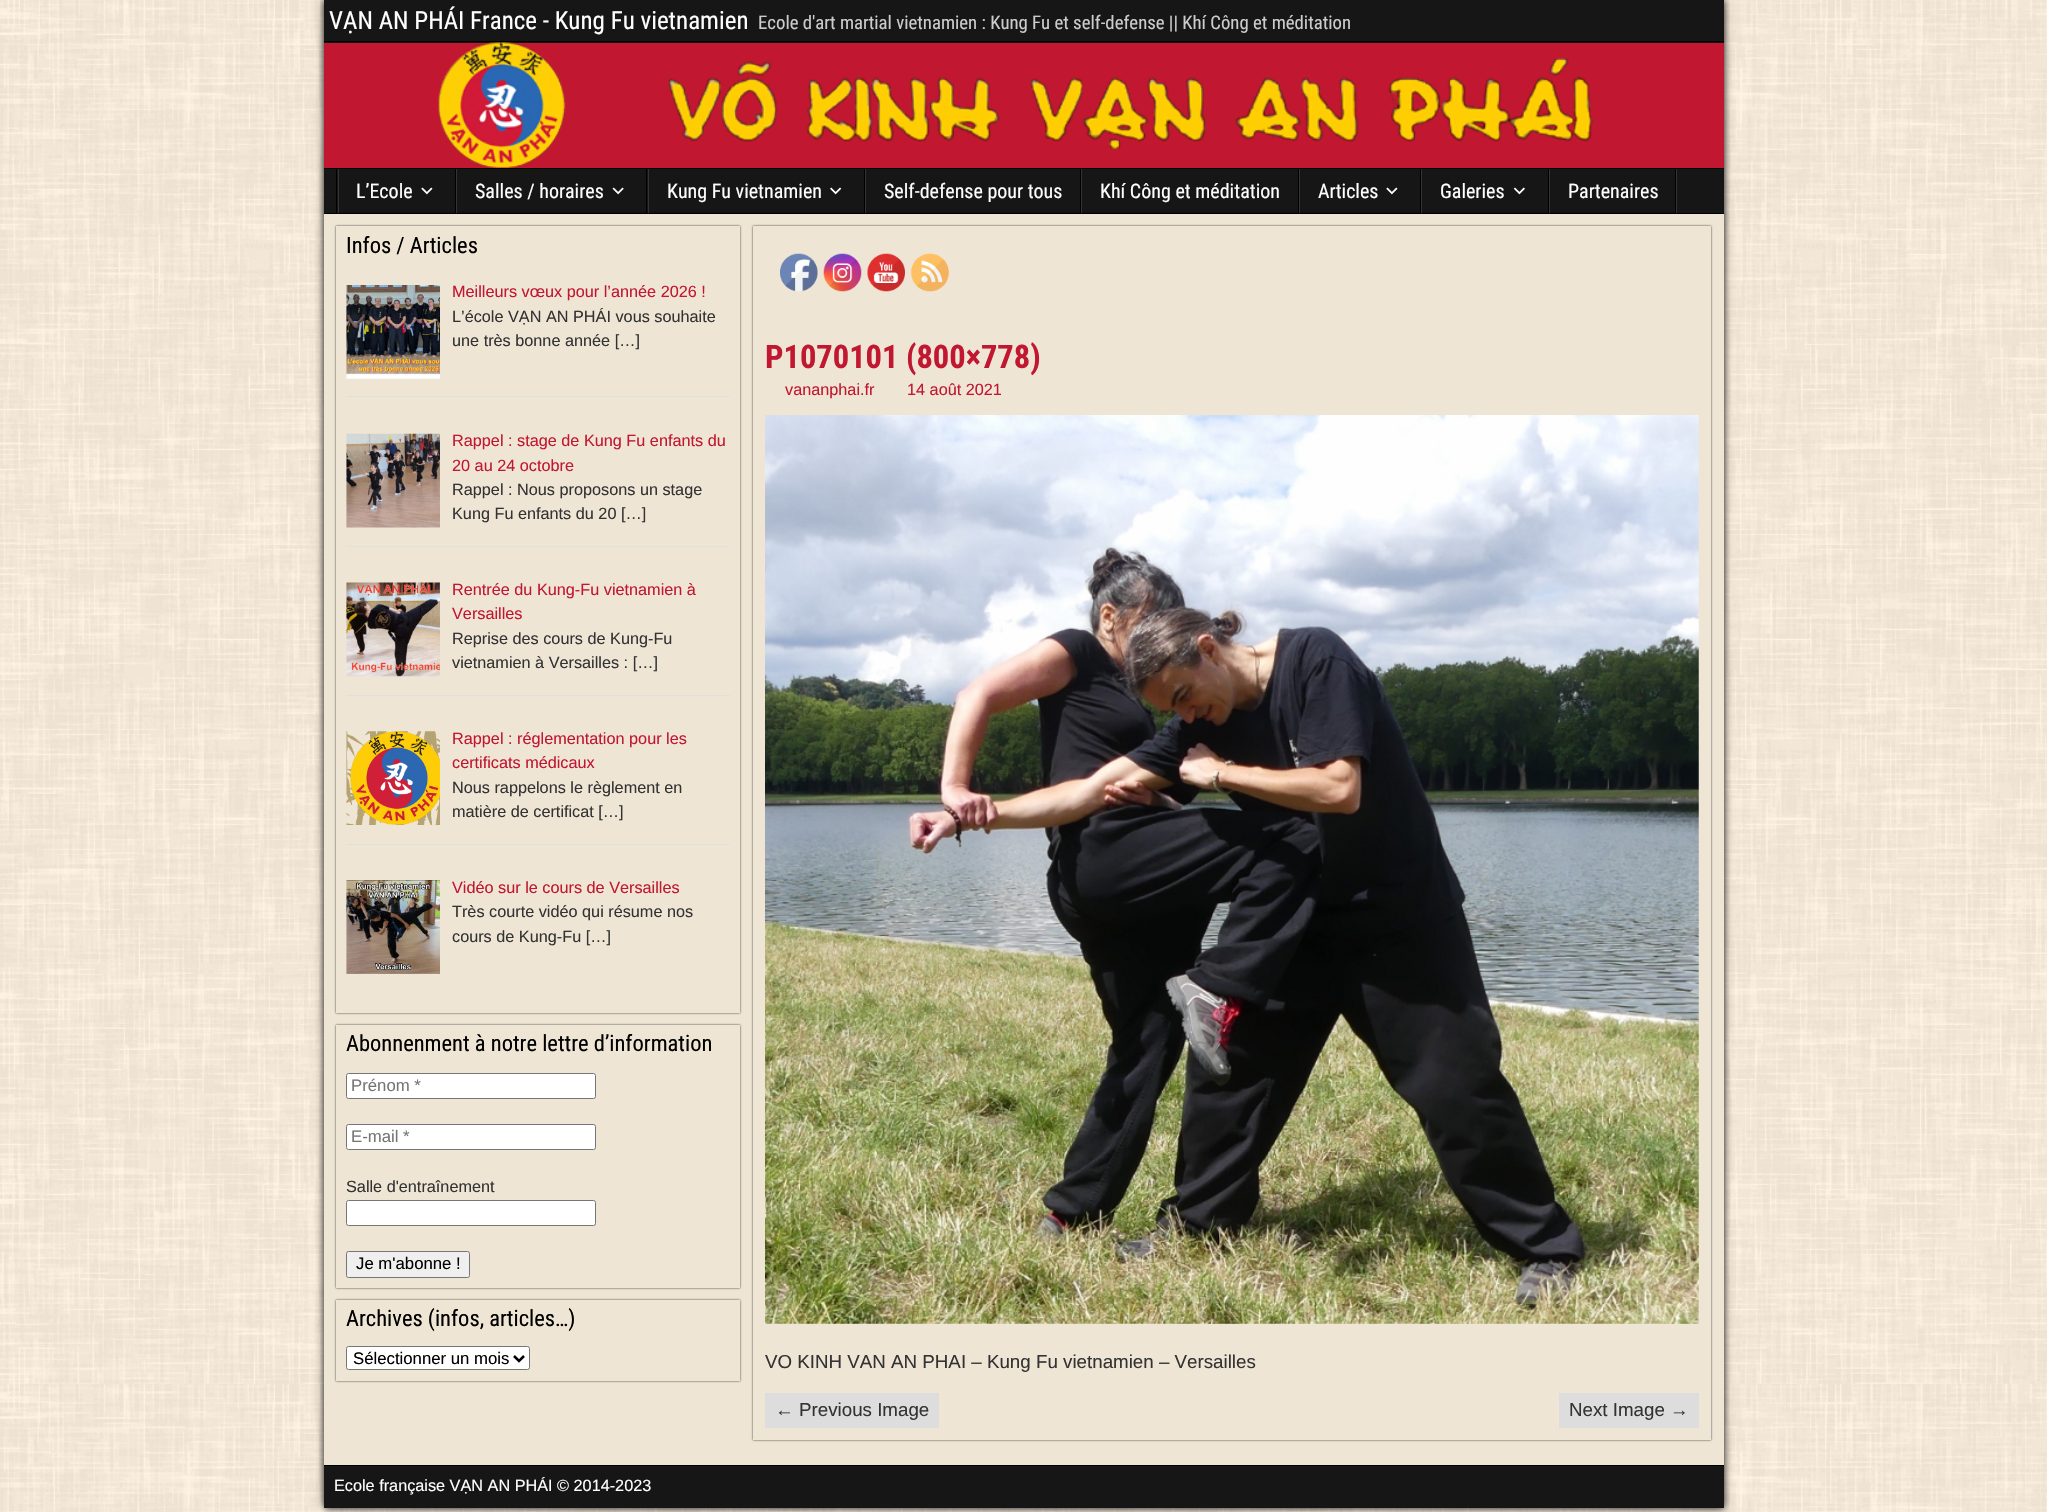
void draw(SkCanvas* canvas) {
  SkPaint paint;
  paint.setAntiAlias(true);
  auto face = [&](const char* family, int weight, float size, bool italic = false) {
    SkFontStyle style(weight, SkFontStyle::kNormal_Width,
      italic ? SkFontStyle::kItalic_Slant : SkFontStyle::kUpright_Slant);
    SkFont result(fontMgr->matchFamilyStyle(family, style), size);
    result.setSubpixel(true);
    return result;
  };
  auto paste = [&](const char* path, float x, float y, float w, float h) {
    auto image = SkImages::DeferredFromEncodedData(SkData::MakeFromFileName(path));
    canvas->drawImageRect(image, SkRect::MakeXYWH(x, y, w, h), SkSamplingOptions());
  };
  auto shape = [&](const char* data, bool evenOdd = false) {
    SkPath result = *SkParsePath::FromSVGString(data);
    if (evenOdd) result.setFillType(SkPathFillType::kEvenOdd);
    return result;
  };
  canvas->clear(0xffffffff);
  paste("img/1.png", 0, 0, 2047, 1512);
  paint.setColor(0xff000000);
  paint.setMaskFilter(SkMaskFilter::MakeBlur(kNormal_SkBlurStyle, 4));
  canvas->drawRect(SkRect::MakeXYWH(324, 0, 1400, 1508), paint);
  paint.setMaskFilter(nullptr);
  {
    const struct { float x, y, w, h; SkColor color; } items[] = {
      {324, 0, 1400, 43, 0xff161616},
      {324, 41, 1400, 1, 0xff000000},
      {324, 43, 1400, 125, 0xffc11730},
      {324, 168, 1400, 1, 0xff000000},
    };
    for (auto [x, y, w, h, color] : items) {
      paint.setColor(color);
      canvas->drawRect(SkRect::MakeXYWH(x, y, w, h), paint);
    }
  }
  paste("img/2.png", 438, 42, 1155, 126);
  {
    const struct { float x, y, w, h; SkColor color; } items[] = {
      {324, 169, 1400, 44, 0xff161616},
      {324, 213, 1400, 1, 0xff000000},
      {1676, 169, 1, 44, 0xff343434},
      {336, 169, 1, 44, 0xff000000},
    };
    for (auto [x, y, w, h, color] : items) {
      paint.setColor(color);
      canvas->drawRect(SkRect::MakeXYWH(x, y, w, h), paint);
    }
  }
  {
    const SkColor colors[] = {0xff161616, 0xff131313};
    const float stops[] = {0.7f, 1};
    const SkPoint ends[] = {{397, 169}, {397, 213}};
    paint.setShader(SkGradientShader::MakeLinear(ends, colors, stops, 2, SkTileMode::kClamp));
    paint.setAlpha(255);
  }
  canvas->drawRect(SkRect::MakeXYWH(339, 211, 116, 2), paint);
  paint.setShader(nullptr);
  paint.setColor(0xff000000);
  canvas->drawRect(SkRect::MakeXYWH(455, 169, 1, 44), paint);
  paint.setColor(0xff343434);
  canvas->drawRect(SkRect::MakeXYWH(338, 169, 1, 44), paint);
  paste("img/3.png", 421, 187, 12, 8);
  {
    const SkColor colors[] = {0xff161616, 0xff131313};
    const float stops[] = {0.7f, 1};
    const SkPoint ends[] = {{552, 169}, {552, 213}};
    paint.setShader(SkGradientShader::MakeLinear(ends, colors, stops, 2, SkTileMode::kClamp));
    paint.setAlpha(255);
  }
  canvas->drawRect(SkRect::MakeXYWH(457, 211, 191, 2), paint);
  paint.setShader(nullptr);
  paint.setColor(0xff000000);
  canvas->drawRect(SkRect::MakeXYWH(646, 169, 1, 44), paint);
  paint.setColor(0xff343434);
  canvas->drawRect(SkRect::MakeXYWH(456, 169, 1, 44), paint);
  paste("img/4.png", 612, 187, 12, 8);
  {
    const SkColor colors[] = {0xff161616, 0xff131313};
    const float stops[] = {0.7f, 1};
    const SkPoint ends[] = {{756, 169}, {756, 213}};
    paint.setShader(SkGradientShader::MakeLinear(ends, colors, stops, 2, SkTileMode::kClamp));
    paint.setAlpha(255);
  }
  canvas->drawRect(SkRect::MakeXYWH(649, 211, 215, 2), paint);
  paint.setShader(nullptr);
  paint.setColor(0xff000000);
  canvas->drawRect(SkRect::MakeXYWH(864, 169, 1, 44), paint);
  paint.setColor(0xff343434);
  canvas->drawRect(SkRect::MakeXYWH(648, 169, 1, 44), paint);
  paste("img/5.png", 830, 187, 12, 8);
  {
    const SkColor colors[] = {0xff161616, 0xff131313};
    const float stops[] = {0.7f, 1};
    const SkPoint ends[] = {{973, 169}, {973, 213}};
    paint.setShader(SkGradientShader::MakeLinear(ends, colors, stops, 2, SkTileMode::kClamp));
    paint.setAlpha(255);
  }
  canvas->drawRect(SkRect::MakeXYWH(866, 211, 214, 2), paint);
  paint.setShader(nullptr);
  paint.setColor(0xff000000);
  canvas->drawRect(SkRect::MakeXYWH(1080, 169, 1, 44), paint);
  paint.setColor(0xff343434);
  canvas->drawRect(SkRect::MakeXYWH(865, 169, 1, 44), paint);
  {
    const SkColor colors[] = {0xff161616, 0xff131313};
    const float stops[] = {0.7f, 1};
    const SkPoint ends[] = {{1190, 169}, {1190, 213}};
    paint.setShader(SkGradientShader::MakeLinear(ends, colors, stops, 2, SkTileMode::kClamp));
    paint.setAlpha(255);
  }
  canvas->drawRect(SkRect::MakeXYWH(1082, 211, 216, 2), paint);
  paint.setShader(nullptr);
  paint.setColor(0xff000000);
  canvas->drawRect(SkRect::MakeXYWH(1298, 169, 1, 44), paint);
  paint.setColor(0xff343434);
  canvas->drawRect(SkRect::MakeXYWH(1081, 169, 1, 44), paint);
  {
    const SkColor colors[] = {0xff161616, 0xff131313};
    const float stops[] = {0.7f, 1};
    const SkPoint ends[] = {{1360, 169}, {1360, 213}};
    paint.setShader(SkGradientShader::MakeLinear(ends, colors, stops, 2, SkTileMode::kClamp));
    paint.setAlpha(255);
  }
  canvas->drawRect(SkRect::MakeXYWH(1300, 211, 120, 2), paint);
  paint.setShader(nullptr);
  paint.setColor(0xff000000);
  canvas->drawRect(SkRect::MakeXYWH(1420, 169, 1, 44), paint);
  paint.setColor(0xff343434);
  canvas->drawRect(SkRect::MakeXYWH(1299, 169, 1, 44), paint);
  paste("img/3.png", 1386, 187, 12, 8);
  {
    const SkColor colors[] = {0xff161616, 0xff131313};
    const float stops[] = {0.7f, 1};
    const SkPoint ends[] = {{1485, 169}, {1485, 213}};
    paint.setShader(SkGradientShader::MakeLinear(ends, colors, stops, 2, SkTileMode::kClamp));
    paint.setAlpha(255);
  }
  canvas->drawRect(SkRect::MakeXYWH(1422, 211, 126, 2), paint);
  paint.setShader(nullptr);
  paint.setColor(0xff000000);
  canvas->drawRect(SkRect::MakeXYWH(1548, 169, 1, 44), paint);
  paint.setColor(0xff343434);
  canvas->drawRect(SkRect::MakeXYWH(1421, 169, 1, 44), paint);
  paste("img/6.png", 1513, 187, 12, 8);
  {
    const SkColor colors[] = {0xff161616, 0xff131313};
    const float stops[] = {0.7f, 1};
    const SkPoint ends[] = {{1613, 169}, {1613, 213}};
    paint.setShader(SkGradientShader::MakeLinear(ends, colors, stops, 2, SkTileMode::kClamp));
    paint.setAlpha(255);
  }
  canvas->drawRect(SkRect::MakeXYWH(1550, 211, 125, 2), paint);
  paint.setShader(nullptr);
  {
    const struct { float x, y, w, h; SkColor color; } items[] = {
      {1675, 169, 1, 44, 0xff000000},
      {1549, 169, 1, 44, 0xff343434},
      {324, 214, 1400, 1251, 0xffefe5d5},
    };
    for (auto [x, y, w, h, color] : items) {
      paint.setColor(color);
      canvas->drawRect(SkRect::MakeXYWH(x, y, w, h), paint);
    }
  }
  paint.setColor(0xff333333);
  paint.setMaskFilter(SkMaskFilter::MakeBlur(kNormal_SkBlurStyle, 1));
  canvas->drawRect(SkRect::MakeXYWH(336, 226, 404, 787), paint);
  paint.setMaskFilter(nullptr);
  paint.setColor(0xffefe5d5);
  canvas->drawRect(SkRect::MakeXYWH(336, 226, 404, 787), paint);
  paint.setColor(0xffe0e0e0);
  canvas->drawRect(SkRect::MakeXYWH(346, 396, 384, 1), paint);
  paste("img/7.png", 346, 285, 94, 94);
  canvas->drawRect(SkRect::MakeXYWH(346, 546, 384, 1), paint);
  paste("img/8.png", 346, 433, 94, 95);
  canvas->drawRect(SkRect::MakeXYWH(346, 695, 384, 1), paint);
  paste("img/9.png", 346, 582, 94, 95);
  canvas->drawRect(SkRect::MakeXYWH(346, 844, 384, 1), paint);
  paste("img/10.png", 346, 731, 94, 94);
  paste("img/11.png", 346, 880, 94, 94);
  paint.setColor(0xff333333);
  paint.setMaskFilter(SkMaskFilter::MakeBlur(kNormal_SkBlurStyle, 1));
  canvas->drawRect(SkRect::MakeXYWH(336, 1025, 404, 263), paint);
  paint.setMaskFilter(nullptr);
  paint.setColor(0xffefe5d5);
  canvas->drawRect(SkRect::MakeXYWH(336, 1025, 404, 263), paint);
  paint.setColor(0xffffffff);
  canvas->drawRoundRect(SkRect::MakeXYWH(346.5f, 1073.5f, 249, 25), 2, 2, paint);
  paint.setStroke(true);
  paint.setStrokeWidth(1);
  paint.setColor(0xff767676);
  canvas->drawRoundRect(SkRect::MakeXYWH(346.5f, 1073.5f, 249, 25), 2, 2, paint);
  paint.setStroke(false);
  paint.setColor(0xffffffff);
  canvas->drawRoundRect(SkRect::MakeXYWH(346.5f, 1124.5f, 249, 25), 2, 2, paint);
  paint.setStroke(true);
  paint.setColor(0xff767676);
  canvas->drawRoundRect(SkRect::MakeXYWH(346.5f, 1124.5f, 249, 25), 2, 2, paint);
  paint.setStroke(false);
  paint.setColor(0xffffffff);
  canvas->drawRoundRect(SkRect::MakeXYWH(346.5f, 1200.5f, 249, 25), 2, 2, paint);
  paint.setStroke(true);
  paint.setColor(0xff767676);
  canvas->drawRoundRect(SkRect::MakeXYWH(346.5f, 1200.5f, 249, 25), 2, 2, paint);
  paint.setStroke(false);
  paint.setColor(0xffefefef);
  canvas->drawRoundRect(SkRect::MakeXYWH(346.5f, 1251.5f, 123, 26), 2, 2, paint);
  paint.setStroke(true);
  paint.setColor(0xff767676);
  canvas->drawRoundRect(SkRect::MakeXYWH(346.5f, 1251.5f, 123, 26), 2, 2, paint);
  paint.setStroke(false);
  paint.setColor(0xff333333);
  paint.setMaskFilter(SkMaskFilter::MakeBlur(kNormal_SkBlurStyle, 1));
  canvas->drawRect(SkRect::MakeXYWH(336, 1300, 404, 81), paint);
  paint.setMaskFilter(nullptr);
  paint.setColor(0xffefe5d5);
  canvas->drawRect(SkRect::MakeXYWH(336, 1300, 404, 81), paint);
  paint.setColor(0xffffffff);
  canvas->drawRoundRect(SkRect::MakeXYWH(346.5f, 1346.5f, 183, 23), 2, 2, paint);
  paint.setStroke(true);
  paint.setColor(0xff767676);
  canvas->drawRoundRect(SkRect::MakeXYWH(346.5f, 1346.5f, 183, 23), 2, 2, paint);
  paint.setStrokeWidth(2.5f);
  paint.setColor(0xff000000);
  canvas->drawPath(shape("M514 1356L519 1361L524 1356"), paint);
  paint.setStroke(false);
  paint.setColor(0xff333333);
  paint.setMaskFilter(SkMaskFilter::MakeBlur(kNormal_SkBlurStyle, 1));
  canvas->drawRect(SkRect::MakeXYWH(753, 226, 958, 1214), paint);
  paint.setMaskFilter(nullptr);
  paint.setColor(0xffefe5d5);
  canvas->drawRect(SkRect::MakeXYWH(753, 226, 958, 1214), paint);
  paste("img/12.png", 780, 253, 38, 39);
  paste("img/13.png", 823, 253, 39, 39);
  paste("img/14.png", 867, 253, 38, 39);
  paste("img/15.png", 911, 253, 38, 39);
  paste("img/16.png", 765, 415, 934, 909);
  {
    const struct { float x, y, w, h; SkColor color; } items[] = {
      {765, 1393, 174, 35, 0xffdddddd},
      {1559, 1393, 140, 35, 0xffdddddd},
      {324, 1466, 1400, 42, 0xff161616},
      {324, 1465, 1400, 1, 0xff000000},
    };
    for (auto [x, y, w, h, color] : items) {
      paint.setColor(color);
      canvas->drawRect(SkRect::MakeXYWH(x, y, w, h), paint);
    }
  }
  auto f0 = face("Roboto Condensed", 400, 25);
  paint.setColor(0xffffffff);
  canvas->drawString("VẠN AN PHÁI France - Kung Fu vietnamien", 329, 29, f0, paint);
  auto f1 = face("Roboto Condensed", 400, 18.75f);
  paint.setColor(0xffcccccc);
  canvas->drawString("Ecole d'art martial vietnamien : Kung Fu et self-defense || Khí Công et méditation", 758, 29, f1, paint);
  auto f2 = face("Roboto Condensed", 400, 20);
  paint.setColor(0xffffffff);
  {
    const struct { const char* s; float x, y; } items[] = {
      {"L’Ecole", 356, 198},
      {"Salles / horaires", 475, 198},
      {"Kung Fu vietnamien", 667, 198},
      {"Self-defense pour tous", 884, 198},
      {"Khí Công et méditation", 1100, 198},
      {"Articles", 1318, 198},
      {"Galeries", 1440, 198},
      {"Partenaires", 1568, 198},
    };
    for (auto [s, x, y] : items) {
      canvas->drawString(s, x, y, f2, paint);
    }
  }
  auto f3 = face("Roboto Condensed", 400, 22.5f);
  paint.setColor(0xff000000);
  canvas->drawString("Infos / Articles", 346, 253, f3, paint);
  auto f4 = face("Liberation Sans", 400, 16.25f);
  paint.setColor(0xffc11730);
  canvas->drawString("Meilleurs vœux pour l’année 2026 !", 452, 297, f4, paint);
  paint.setColor(0xff333333);
  canvas->drawString("L’école VẠN AN PHÁI vous souhaite", 452, 322, f4, paint);
  canvas->drawString("une très bonne année […]", 452, 346, f4, paint);
  paint.setColor(0xffc11730);
  canvas->drawString("Rappel : stage de Kung Fu enfants du", 452, 446, f4, paint);
  canvas->drawString("20 au 24 octobre", 452, 471, f4, paint);
  paint.setColor(0xff333333);
  canvas->drawString("Rappel : Nous proposons un stage", 452, 495, f4, paint);
  canvas->drawString("Kung Fu enfants du 20 […]", 452, 519, f4, paint);
  paint.setColor(0xffc11730);
  canvas->drawString("Rentrée du Kung-Fu vietnamien à", 452, 595, f4, paint);
  canvas->drawString("Versailles", 452, 619, f4, paint);
  paint.setColor(0xff333333);
  canvas->drawString("Reprise des cours de Kung-Fu", 452, 644, f4, paint);
  canvas->drawString("vietnamien à Versailles : […]", 452, 668, f4, paint);
  paint.setColor(0xffc11730);
  canvas->drawString("Rappel : réglementation pour les", 452, 744, f4, paint);
  canvas->drawString("certificats médicaux", 452, 768, f4, paint);
  paint.setColor(0xff333333);
  canvas->drawString("Nous rappelons le règlement en", 452, 793, f4, paint);
  canvas->drawString("matière de certificat […]", 452, 817, f4, paint);
  paint.setColor(0xffc11730);
  canvas->drawString("Vidéo sur le cours de Versailles", 452, 893, f4, paint);
  paint.setColor(0xff333333);
  canvas->drawString("Très courte vidéo qui résume nos", 452, 917, f4, paint);
  canvas->drawString("cours de Kung-Fu […]", 452, 942, f4, paint);
  paint.setColor(0xff000000);
  canvas->drawString("Abonnenment à notre lettre d’information", 346, 1051, f3, paint);
  auto f5 = face("Liberation Sans", 400, 16.75f);
  paint.setColor(0xff757575);
  canvas->drawString("Prénom *", 351, 1091, f5, paint);
  canvas->drawString("E-mail *", 351, 1142, f5, paint);
  paint.setColor(0xff333333);
  canvas->drawString("Salle d'entraînement", 346, 1192, f4, paint);
  paint.setColor(0xff000000);
  canvas->drawString("Je m'abonne !", 356, 1269, f5, paint);
  canvas->drawString("Archives (infos, articles…)", 346, 1326, f3, paint);
  canvas->drawString("Sélectionner un mois", 353, 1364, f5, paint);
  auto f6 = face("Roboto Condensed", 700, 32.5f);
  paint.setColor(0xffc11730);
  canvas->drawString("P1070101 (800×778)", 765, 368, f6, paint);
  canvas->drawString("vananphai.fr", 785, 395, f4, paint);
  canvas->drawString("14 août 2021", 907, 395, f4, paint);
  auto f7 = face("Arimo", 400, 18.75f);
  paint.setColor(0xff333333);
  canvas->drawString("VO KINH VAN AN PHAI – Kung Fu vietnamien – Versailles", 765, 1368, f7, paint);
  auto f8 = face("Liberation Sans", 400, 18.75f);
  canvas->drawString("←", 775, 1416, f8, paint);
  canvas->drawString("Previous Image", 799, 1416, f7, paint);
  canvas->drawString("Next Image", 1569, 1416, f7, paint);
  canvas->drawString("→", 1670, 1416, f8, paint);
  paint.setColor(0xffffffff);
  canvas->drawString("Ecole française VẠN AN PHÁI © 2014-2023", 334, 1491, f4, paint);
}
